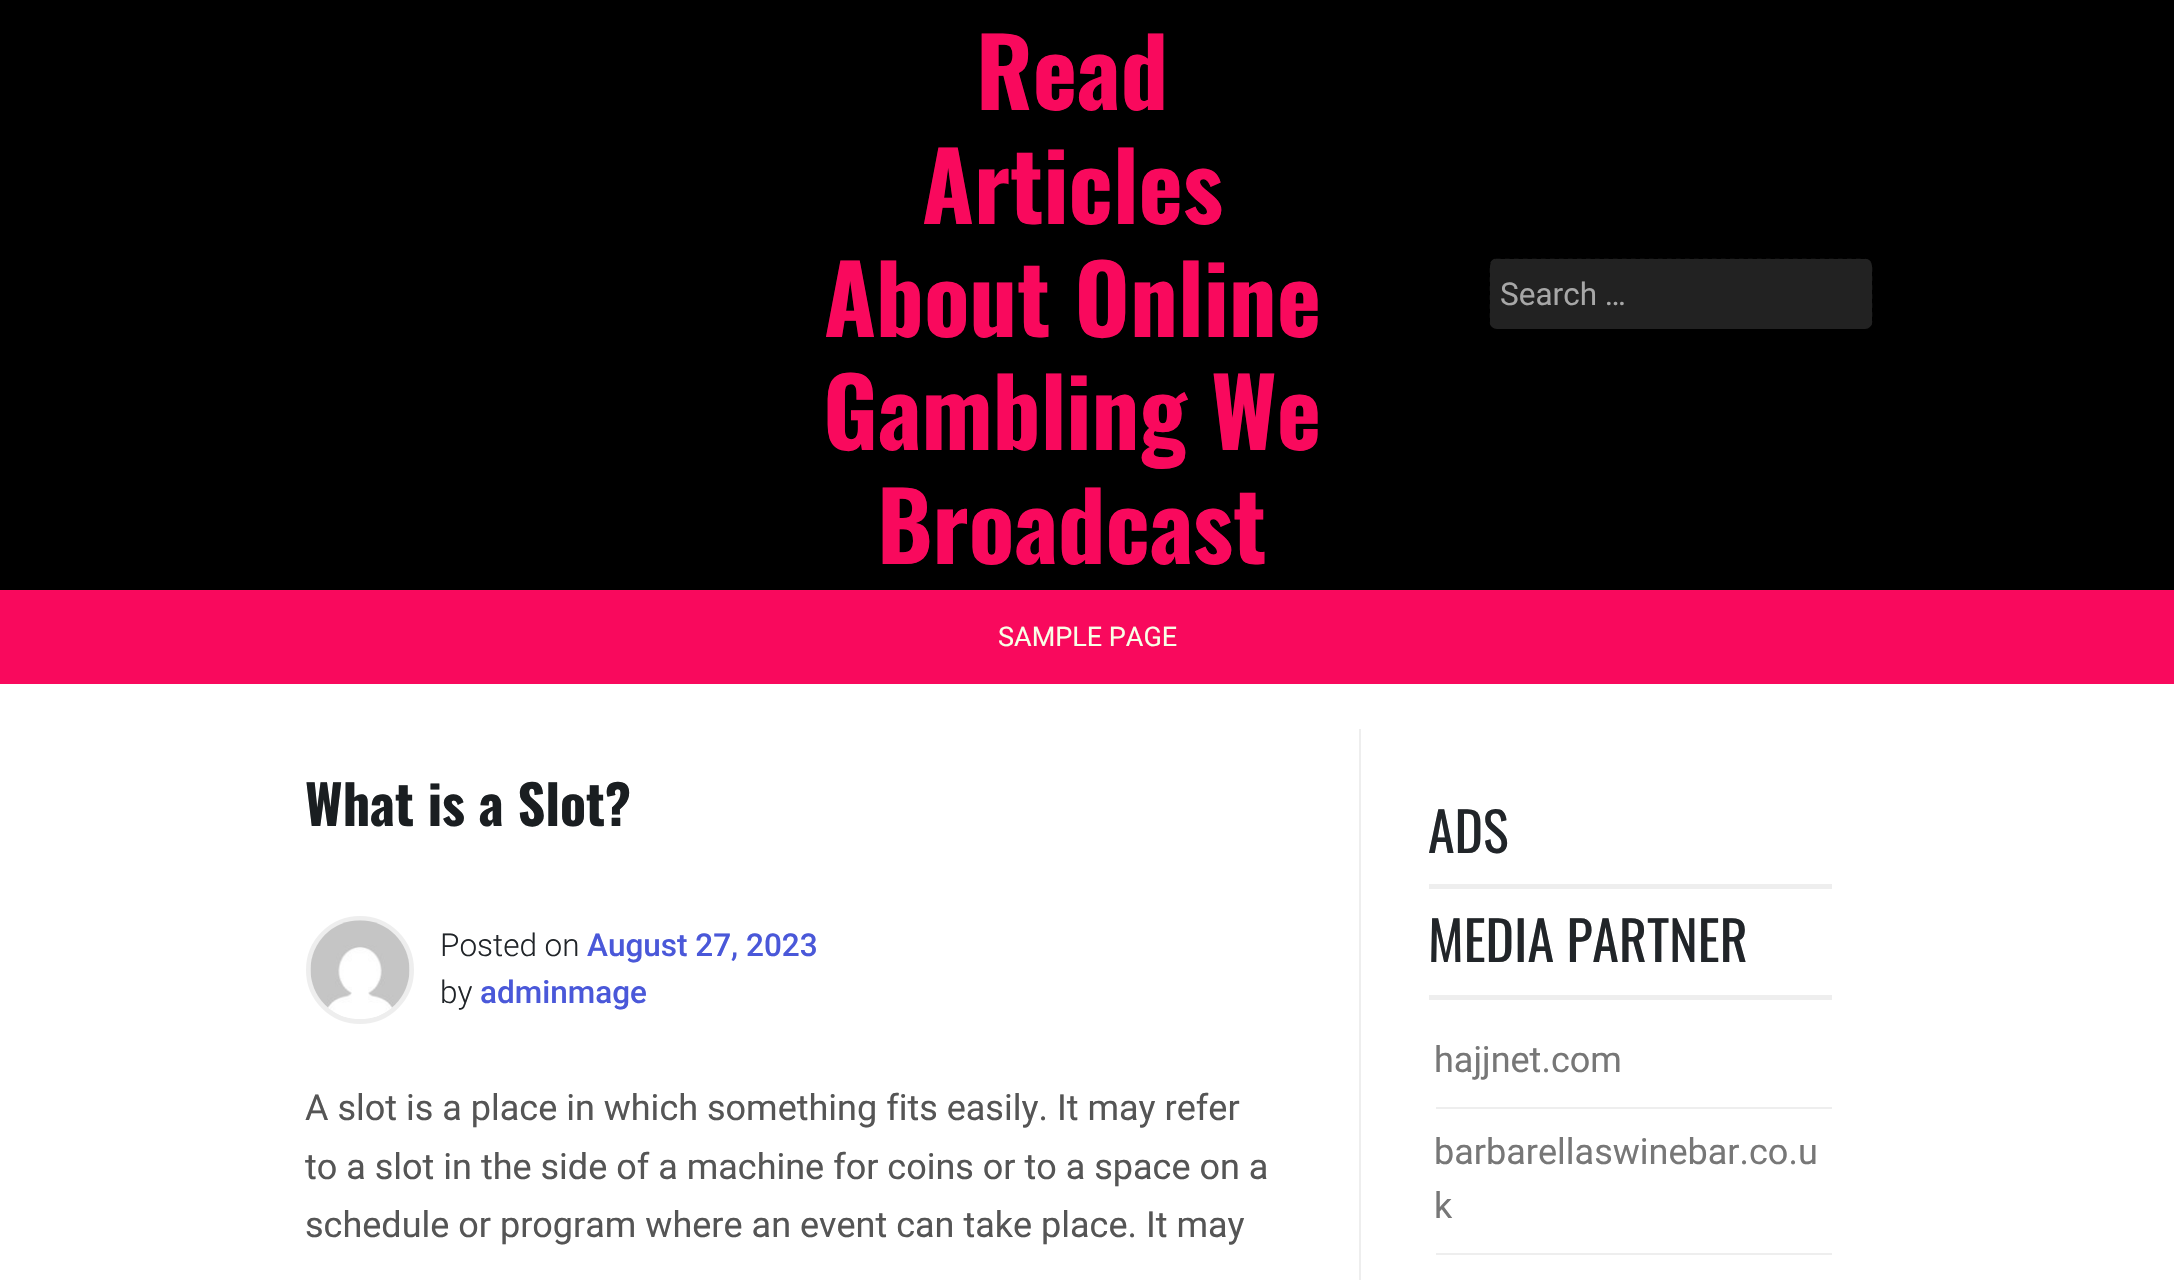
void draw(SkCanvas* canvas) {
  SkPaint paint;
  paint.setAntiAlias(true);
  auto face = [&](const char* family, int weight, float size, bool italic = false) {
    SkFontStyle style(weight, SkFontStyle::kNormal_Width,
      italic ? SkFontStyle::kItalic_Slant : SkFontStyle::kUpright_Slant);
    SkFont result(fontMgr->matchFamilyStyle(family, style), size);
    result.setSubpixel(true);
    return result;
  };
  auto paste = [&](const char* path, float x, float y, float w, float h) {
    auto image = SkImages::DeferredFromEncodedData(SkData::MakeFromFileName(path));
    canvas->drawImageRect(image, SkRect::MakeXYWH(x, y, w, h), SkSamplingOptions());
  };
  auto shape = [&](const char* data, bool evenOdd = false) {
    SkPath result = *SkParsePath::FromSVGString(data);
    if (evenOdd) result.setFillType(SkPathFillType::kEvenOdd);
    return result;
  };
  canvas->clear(0xffffffff);
  paint.setColor(0xff000000);
  canvas->drawRect(SkRect::MakeXYWH(0, 0, 2174, 590), paint);
  paint.setColor(0xff222222);
  canvas->drawRoundRect(SkRect::MakeXYWH(1490, 259, 382, 70), 7, 7, paint);
  paint.setStroke(true);
  paint.setStrokeWidth(4.5f);
  paint.setPathEffect(SkDashPathEffect::Make({{4.5f, 4.5f}}, 0));
  canvas->drawPath(shape("M1496 261H1865C1867.5 261 1870 263 1870 265.5V322C1870 324 1867.5 326 1865 326H1496C1494 326 1492 324 1492 322V265.5C1492 263 1494 261 1496 261Z"), paint);
  paint.setPathEffect(nullptr);
  paint.setStroke(false);
  paint.setColor(0xfff9095d);
  canvas->drawRect(SkRect::MakeXYWH(0, 590, 2174, 94), paint);
  paint.setStroke(true);
  paint.setStrokeWidth(5);
  paint.setColor(0xffeeeeee);
  canvas->drawCircle(360, 970, 51.5f, paint);
  paste("img/1.png", 310, 920, 100, 98);
  paint.setStroke(false);
  {
    const struct { float x, y, w, h; SkColor color; } items[] = {
      {1359, 729, 2, 551, 0xffeeeeee},
      {1429, 884, 403, 5, 0xffeeeeee},
      {1429, 995, 403, 5, 0xffeeeeee},
      {1436, 1107, 396, 2, 0xffeeeeee},
      {1436, 1253, 396, 2, 0xffeeeeee},
    };
    for (auto [x, y, w, h, color] : items) {
      paint.setColor(color);
      canvas->drawRect(SkRect::MakeXYWH(x, y, w, h), paint);
    }
  }
  auto f0 = face("Oswald", 700, 94.5f);
  paint.setColor(0xfff9095d);
  {
    const struct { const char* s; float x, y; } items[] = {
      {"Read", 976, 110},
      {"Articles", 922, 224},
      {"About Online", 824, 337},
      {"Gambling We", 823, 450},
      {"Broadcast", 877, 564},
    };
    for (auto [s, x, y] : items) {
      canvas->drawString(s, x, y, f0, paint);
    }
  }
  auto f1 = face("Roboto", 400, 31.5f);
  paint.setColor(0xffa7a7a7);
  canvas->drawString("Search …", 1500, 305, f1, paint);
  auto f2 = face("Roboto", 400, 27);
  paint.setColor(0xfff9ffe7);
  canvas->drawString("SAMPLE PAGE", 998, 646, f2, paint);
  auto f3 = face("Oswald", 700, 54);
  paint.setColor(0xff1a1e21);
  canvas->drawString("What is a Slot?", 305, 826, f3, paint);
  auto f4 = face("Roboto", 300, 31.5f);
  paint.setColor(0xff212529);
  canvas->drawString("Posted on", 440, 956, f4, paint);
  auto f5 = face("Roboto", 500, 31.5f);
  paint.setColor(0xff4a58d9);
  canvas->drawString("August 27, 2023", 587, 956, f5, paint);
  paint.setColor(0xff212529);
  canvas->drawString("by", 440, 1003, f4, paint);
  paint.setColor(0xff4a58d9);
  canvas->drawString("adminmage", 480, 1003, f5, paint);
  auto f6 = face("Roboto", 400, 36);
  paint.setColor(0xff555555);
  {
    const struct { const char* s; float x, y; } items[] = {
      {"A slot is a place in which something fits easily. It may refer", 305, 1120},
      {"to a slot in the side of a machine for coins or to a space on a", 305, 1179},
      {"schedule or program where an event can take place. It may", 305, 1237},
    };
    for (auto [s, x, y] : items) {
      canvas->drawString(s, x, y, f6, paint);
    }
  }
  auto f7 = face("Oswald", 400, 54);
  paint.setColor(0xff212529);
  canvas->drawString("ADS", 1428, 853, f7, paint);
  canvas->drawString("MEDIA PARTNER", 1428, 962, f7, paint);
  paint.setColor(0xff777777);
  {
    const struct { const char* s; float x, y; } items[] = {
      {"hajjnet.com", 1434, 1072},
      {"barbarellaswinebar.co.u", 1434, 1164},
      {"k", 1434, 1218},
    };
    for (auto [s, x, y] : items) {
      canvas->drawString(s, x, y, f6, paint);
    }
  }
}
